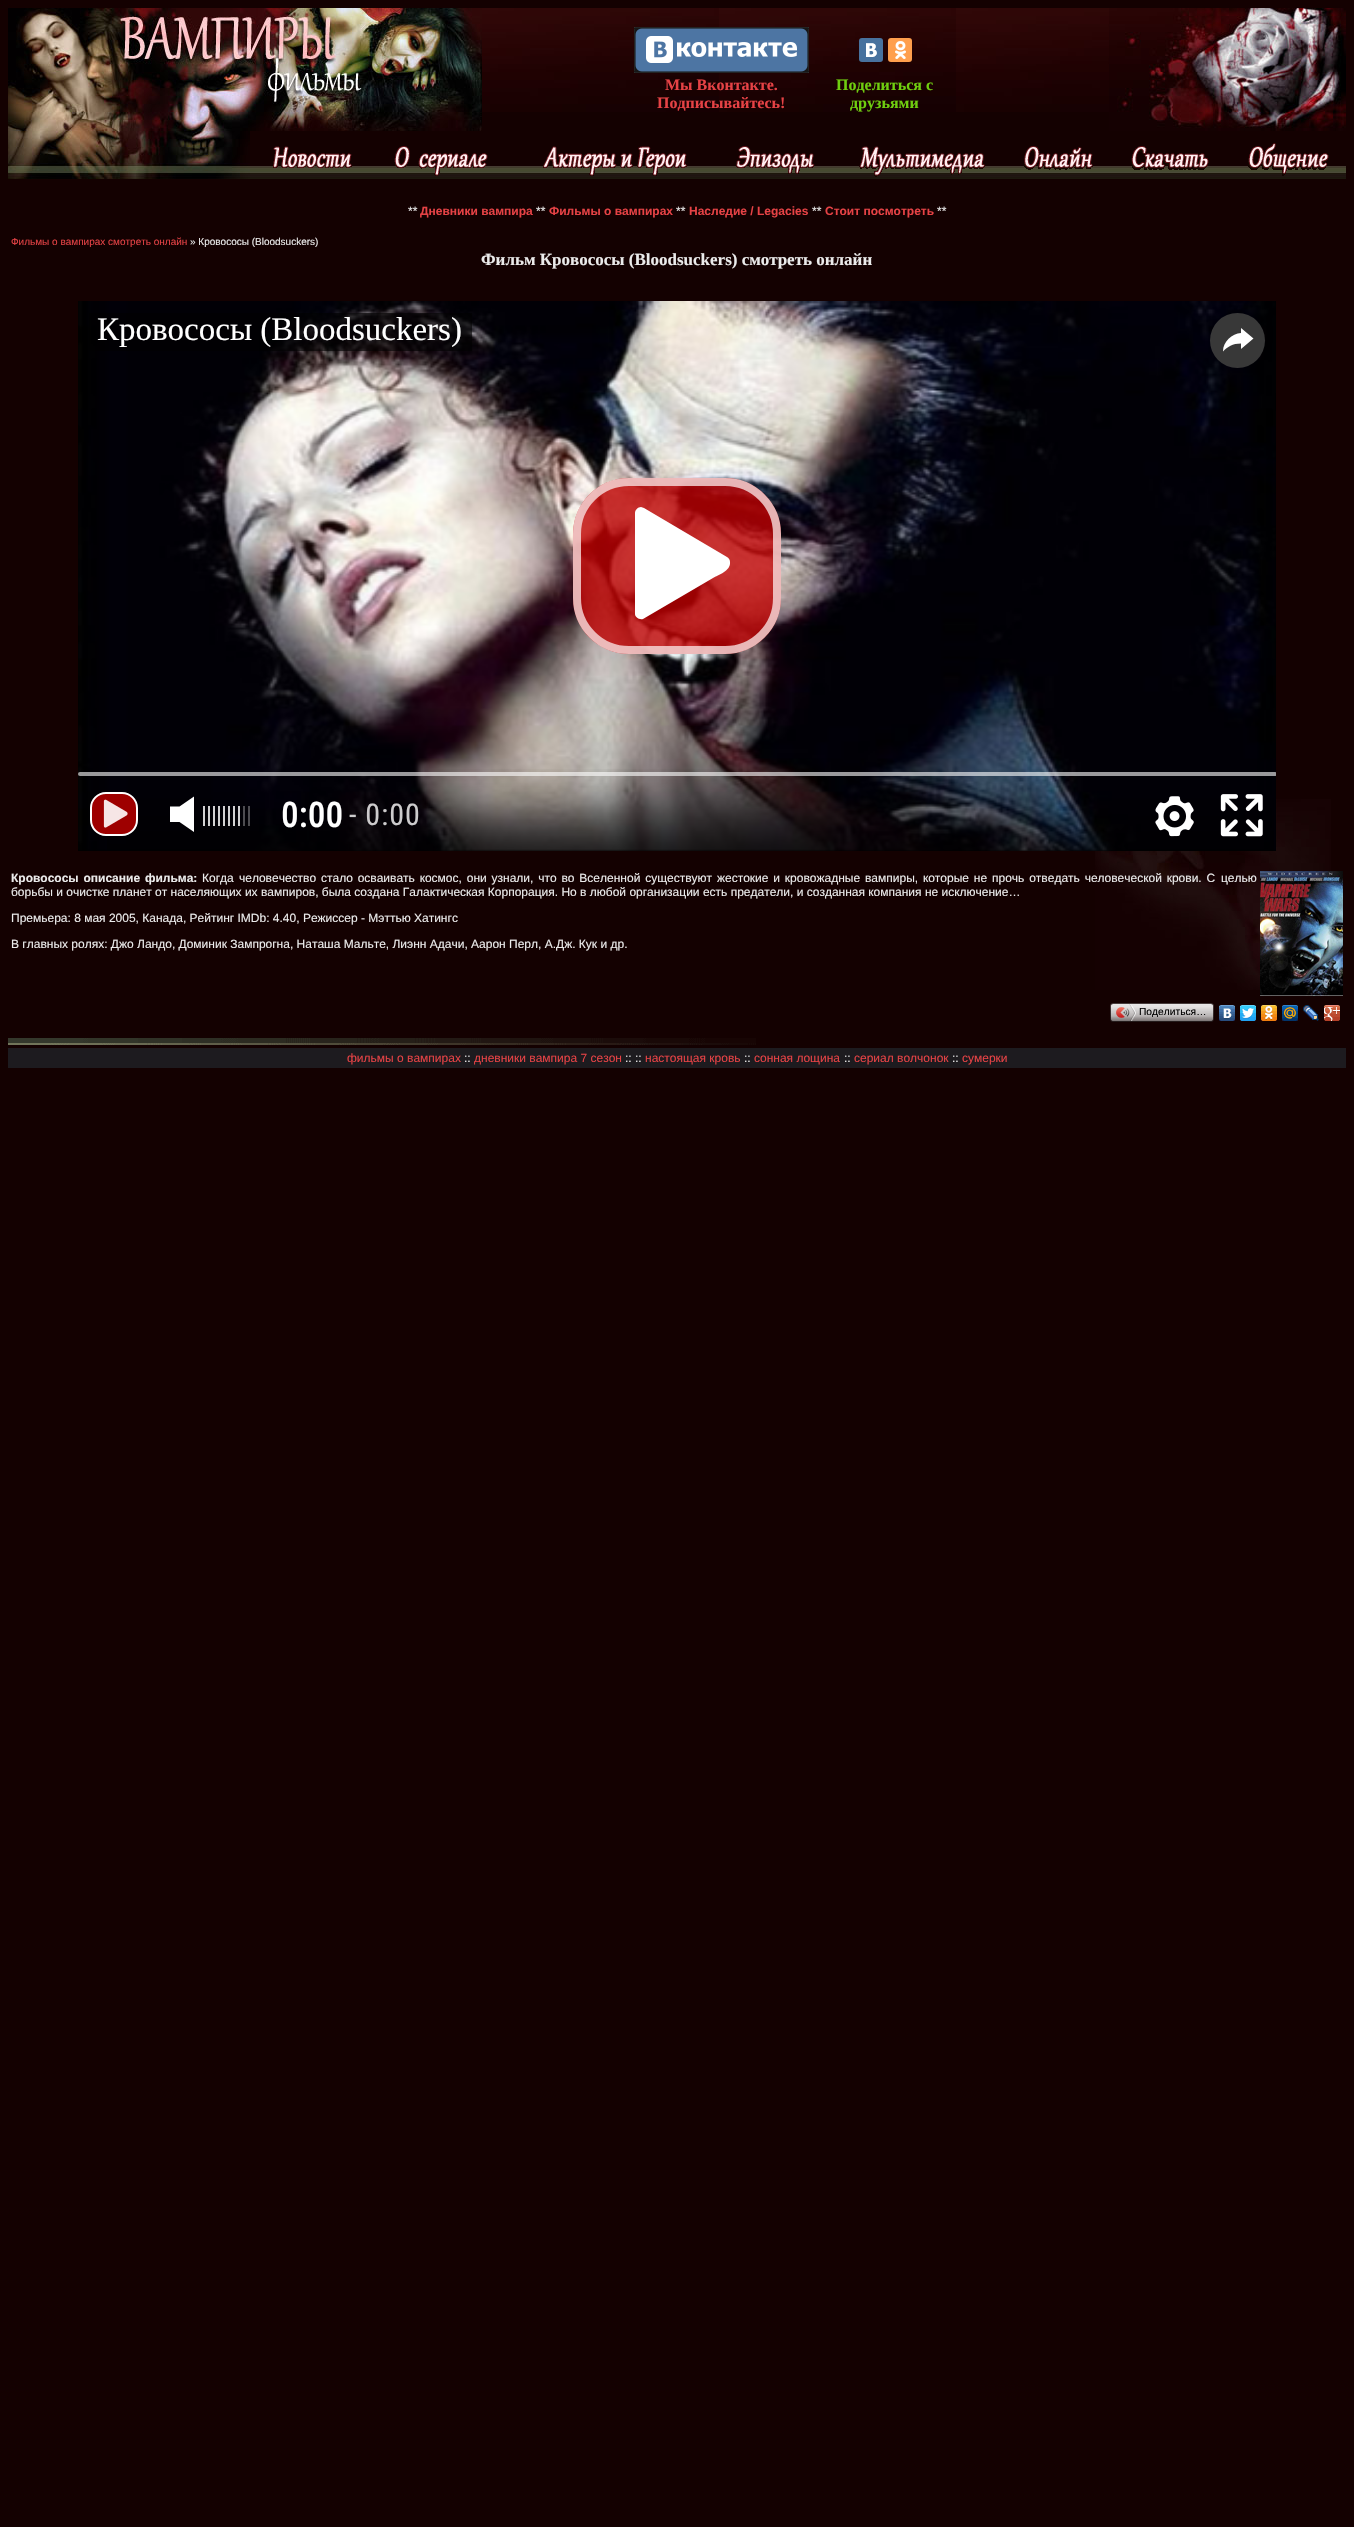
void draw(SkCanvas* canvas) {
  SkPaint paint;
  paint.setAntiAlias(true);
  auto face = [&](const char* family, int weight, float size, bool italic = false) {
    SkFontStyle style(weight, SkFontStyle::kNormal_Width,
      italic ? SkFontStyle::kItalic_Slant : SkFontStyle::kUpright_Slant);
    SkFont result(fontMgr->matchFamilyStyle(family, style), size);
    result.setSubpixel(true);
    return result;
  };
  auto writeSpaced = [&](const char* s, float x, float y, const SkFont& font, const SkPaint& ink, float letter, float word) {
    std::vector<SkGlyphID> glyphs(font.countText(s, strlen(s), SkTextEncoding::kUTF8));
    std::vector<float> xs(glyphs.size());
    font.textToGlyphs(s, strlen(s), SkTextEncoding::kUTF8, glyphs);
    font.getXPos(glyphs, xs, x);
    float extra = 0;
    for (size_t i = 0; i < glyphs.size(); i++) {
      xs[i] += extra;
      extra += letter + word * (glyphs[i] == font.unicharToGlyph(' '));
    }
    canvas->drawTextBlob(SkTextBlob::MakeFromPosHGlyphs(glyphs, xs, y, font), 0, 0, ink);
  };
  auto paste = [&](const char* path, float x, float y, float w, float h) {
    auto image = SkImages::DeferredFromEncodedData(SkData::MakeFromFileName(path));
    canvas->drawImageRect(image, SkRect::MakeXYWH(x, y, w, h), SkSamplingOptions());
  };
  auto shape = [&](const char* data, bool evenOdd = false) {
    SkPath result = *SkParsePath::FromSVGString(data);
    if (evenOdd) result.setFillType(SkPathFillType::kEvenOdd);
    return result;
  };
  canvas->clear(0xff140101);
  paste("img/1.png", 482, 8, 627, 104);
  paste("img/2.png", 8, 8, 474, 123);
  paste("img/3.png", 634, 27, 175, 46);
  paint.setColor(0xff48729e);
  canvas->drawRoundRect(SkRect::MakeXYWH(859, 38, 24, 24), 3, 3, paint);
  paste("img/4.png", 866, 43, 11, 14);
  paint.setColor(0xffff9f4d);
  canvas->drawRoundRect(SkRect::MakeXYWH(888, 38, 24, 24), 3, 3, paint);
  paste("img/5.png", 895, 41, 11, 18);
  paste("img/6.png", 1109, 8, 237, 123);
  paste("img/7.png", 250, 166, 1096, 13);
  paste("img/8.png", 8, 131, 242, 48);
  paste("img/9.png", 273, 146, 79, 22);
  paste("img/10.png", 394, 146, 94, 30);
  paste("img/11.png", 543, 146, 144, 30);
  paste("img/12.png", 736, 146, 79, 28);
  paste("img/13.png", 859, 146, 126, 31);
  paste("img/14.png", 1024, 146, 69, 24);
  paste("img/15.png", 1131, 146, 78, 24);
  paste("img/16.png", 1248, 143, 81, 33);
  paste("img/17.png", 1095, 799, 236, 191);
  paint.setColor(0xff000000);
  canvas->drawRect(SkRect::MakeXYWH(78, 301, 1198, 550), paint);
  paste("img/18.png", 78, 301, 1198, 550);
  paint.setColor(0x99000000);
  canvas->drawRect(SkRect::MakeXYWH(89, 313, 383, 38), paint);
  paint.setColor(0xff383838);
  canvas->drawCircle(1237.5f, 340.5f, 27.5f, paint);
  paint.setColor(0xffffffff);
  canvas->drawPath(shape("M1241 349V343.5C1232.5 343.5 1227.5 347 1223 351.5C1223 341.5 1232 333.5 1241 333V328L1253.5 338.5Z"), paint);
  paint.setColor(0xccbd0000);
  canvas->drawRoundRect(SkRect::MakeXYWH(573, 478, 208, 176), 56, 56, paint);
  paint.setStroke(true);
  paint.setStrokeWidth(8);
  paint.setColor(0xccf7dfdf);
  canvas->drawRoundRect(SkRect::MakeXYWH(577, 482, 200, 168), 52, 52, paint);
  paint.setStroke(false);
  paint.setColor(0xffffffff);
  canvas->drawPath(shape("M727 557L644 508L641 507C638 507 635 510 635 513V614C635 617 639 620 643 619L713 578C718 575 731 571 730 562C730 560 729 558 727 557Z"), paint);
  paste("img/19.png", 107, 769, 1167, 82);
  canvas->save();
  canvas->clipRect(SkRect::MakeXYWH(78, 301, 1198, 550));
  paint.setColor(0x99ffffff);
  canvas->drawRoundRect(SkRect::MakeXYWH(78, 772, 1199, 4), 2, 2, paint);
  canvas->restore();
  paint.setColor(0xff9e0000);
  canvas->drawRoundRect(SkRect::MakeXYWH(91, 793, 46, 42), 15, 15, paint);
  paint.setStroke(true);
  paint.setStrokeWidth(2);
  paint.setColor(0xffffffff);
  canvas->drawRoundRect(SkRect::MakeXYWH(91, 793, 46, 42), 15, 15, paint);
  paste("img/20.png", 103, 799, 25, 29);
  paint.setStroke(false);
  canvas->drawPath(shape("M170 822V806.5H179.5L194 796.5V832L179.5 822Z"), paint);
  paste("img/21.png", 203, 806, 47, 20);
  paste("img/22.png", 203, 806, 37, 20);
  paste("img/23.png", 1155, 796, 39, 41);
  paste("img/24.png", 1220, 794, 43, 43);
  paste("img/25.png", 1260, 871, 83, 125);
  paste("img/26.png", 1113, 1003, 98, 19);
  paste("img/27.png", 1110, 1003, 3, 19);
  paste("img/28.png", 1116, 1004, 20, 17);
  paste("img/29.png", 1211, 1003, 3, 19);
  paste("img/30.png", 1219, 1005, 16, 16);
  paste("img/31.png", 1240, 1005, 16, 16);
  paste("img/32.png", 1261, 1005, 16, 16);
  paste("img/33.png", 1282, 1005, 16, 16);
  paste("img/34.png", 1303, 1005, 16, 16);
  paste("img/35.png", 1324, 1005, 16, 16);
  paste("img/36.png", 8, 1038, 748, 7);
  paint.setColor(0xff1d1b1f);
  canvas->drawRect(SkRect::MakeXYWH(8, 1048, 1338, 20), paint);
  auto f0 = face("Liberation Serif", 700, 16);
  paint.setColor(0xffe64245);
  canvas->drawString("Мы Вконтакте.", 665, 90, f0, paint);
  canvas->drawString("Подписывайтесь!", 657, 108, f0, paint);
  paint.setColor(0xff6fce0f);
  canvas->drawString("Поделиться с", 836, 90, f0, paint);
  canvas->drawString("друзьями", 850, 108, f0, paint);
  auto f1 = face("Liberation Sans", 400, 12);
  paint.setColor(0xffebebeb);
  canvas->drawString("**", 408, 215, f1, paint);
  auto f2 = face("Liberation Sans", 700, 12);
  paint.setColor(0xffe64245);
  canvas->drawString("Дневники вампира", 420, 215, f2, paint);
  paint.setColor(0xffebebeb);
  canvas->drawString("**", 536, 215, f1, paint);
  paint.setColor(0xffe64245);
  canvas->drawString("Фильмы о вампирах", 549, 215, f2, paint);
  paint.setColor(0xffebebeb);
  canvas->drawString("**", 676, 215, f1, paint);
  paint.setColor(0xffe64245);
  canvas->drawString("Наследие / Legacies", 689, 215, f2, paint);
  paint.setColor(0xffebebeb);
  canvas->drawString("**", 812, 215, f1, paint);
  paint.setColor(0xffe64245);
  canvas->drawString("Стоит посмотреть", 825, 215, f2, paint);
  paint.setColor(0xffebebeb);
  canvas->drawString("**", 937, 215, f1, paint);
  auto f3 = face("Liberation Sans", 400, 10);
  paint.setColor(0xffe64245);
  canvas->drawString("Фильмы о вампирах смотреть онлайн", 11, 245, f3, paint);
  paint.setColor(0xffebebeb);
  canvas->drawString("» Кровососы (Bloodsuckers)", 190, 245, f3, paint);
  auto f4 = face("Liberation Serif", 700, 17);
  canvas->drawString("Фильм Кровососы (Bloodsuckers) смотреть онлайн", 481, 265, f4, paint);
  auto f5 = face("Liberation Serif", 400, 33);
  paint.setColor(0xffffffff);
  canvas->drawString("Кровососы (Bloodsuckers)", 97, 340, f5, paint);
  auto f6 = face("Roboto Condensed", 700, 34);
  writeSpaced("0:00", 281, 827, f6, paint, 1, 0);
  auto f7 = face("Roboto Condensed", 400, 30);
  paint.setColor(0xffcdcccd);
  writeSpaced("- 0:00", 349, 825, f7, paint, 1, 0);
  paint.setColor(0xffebebeb);
  writeSpaced("Кровососы описание фильма:", 11, 882, f2, paint, 0, 1.5f);
  canvas->drawString("Когда", 202, 882, f1, paint);
  writeSpaced("человечество стало осваивать космос, они узнали, что во Вселенной существуют", 239, 882, f1, paint, 0, 1.5f);
  writeSpaced("жестокие и кровожадные вампиры, которые не прочь отведать человеческой крови. С", 717, 882, f1, paint, 0, 1.5f);
  {
    const struct { const char* s; float x, y; } items[] = {
      {"целью", 1221, 882},
      {"борьбы и очистке планет от населяющих их вампиров, была создана Галактическая Корпорация. Но в любой организации есть предатели, и созданная компания не исключение…", 11, 896},
      {"Премьера: 8 мая 2005, Канада, Рейтинг IMDb: 4.40, Режиссер - Мэттью Хатингс", 11, 922},
      {"В главных ролях: Джо Ландо, Доминик Зампрогна, Наташа Мальте, Лиэнн Адачи, Аарон Перл, А.Дж. Кук и др.", 11, 948},
    };
    for (auto [s, x, y] : items) {
      canvas->drawString(s, x, y, f1, paint);
    }
  }
  auto f8 = face("Liberation Sans", 400, 10.25f);
  paint.setColor(0xff000000);
  canvas->drawString("Поделиться…", 1139, 1015, f8, paint);
  paint.setColor(0xffe64245);
  canvas->drawString("фильмы о вампирах", 347, 1062, f1, paint);
  paint.setColor(0xffebebeb);
  canvas->drawString("::", 464, 1062, f1, paint);
  paint.setColor(0xffe64245);
  canvas->drawString("дневники вампира 7 сезон", 474, 1062, f1, paint);
  paint.setColor(0xffebebeb);
  canvas->drawString(":: ::", 625, 1062, f1, paint);
  paint.setColor(0xffe64245);
  canvas->drawString("настоящая кровь", 645, 1062, f1, paint);
  paint.setColor(0xffebebeb);
  canvas->drawString("::", 744, 1062, f1, paint);
  paint.setColor(0xffe64245);
  canvas->drawString("сонная лощина", 754, 1062, f1, paint);
  paint.setColor(0xffebebeb);
  canvas->drawString("::", 844, 1062, f1, paint);
  paint.setColor(0xffe64245);
  canvas->drawString("сериал волчонок", 854, 1062, f1, paint);
  paint.setColor(0xffebebeb);
  canvas->drawString("::", 952, 1062, f1, paint);
  paint.setColor(0xffe64245);
  canvas->drawString("сумерки", 962, 1062, f1, paint);
}
